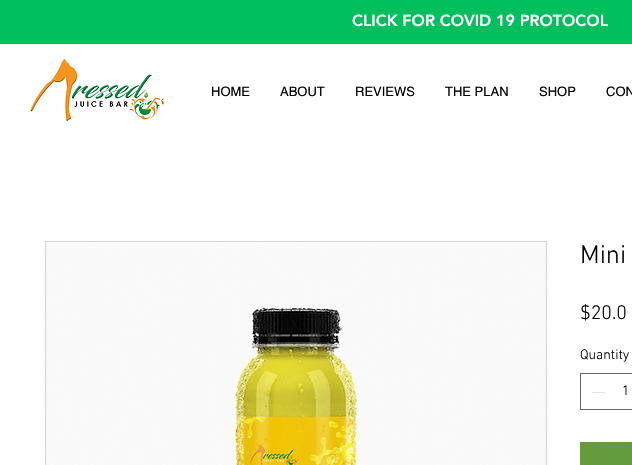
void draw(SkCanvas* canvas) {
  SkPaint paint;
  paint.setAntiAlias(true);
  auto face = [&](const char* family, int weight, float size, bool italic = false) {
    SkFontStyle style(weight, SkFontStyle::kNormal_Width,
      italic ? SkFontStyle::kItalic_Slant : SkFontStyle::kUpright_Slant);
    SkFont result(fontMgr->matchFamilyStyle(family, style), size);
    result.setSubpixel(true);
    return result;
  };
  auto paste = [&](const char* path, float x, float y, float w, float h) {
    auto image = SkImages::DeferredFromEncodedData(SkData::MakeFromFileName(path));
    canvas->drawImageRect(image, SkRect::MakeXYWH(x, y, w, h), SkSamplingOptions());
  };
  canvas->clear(0xff00bf5d);
  paint.setColor(0xffffffff);
  canvas->drawRect(SkRect::MakeXYWH(0, 44, 632, 421), paint);
  paste("img/1.png", 30, 59, 134, 62);
  paint.setStroke(true);
  paint.setStrokeWidth(1);
  paint.setColor(0xffd6d6d6);
  canvas->drawRect(SkRect::MakeXYWH(45.5f, 241.5f, 501, 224), paint);
  paste("img/2.png", 46, 242, 500, 223);
  paint.setColor(0xff666666);
  canvas->drawRect(SkRect::MakeXYWH(580.5f, 373.5f, 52, 36), paint);
  paint.setStroke(false);
  paint.setColor(0xffe3e3e3);
  canvas->drawRect(SkRect::MakeXYWH(592, 392, 13, 1), paint);
  paint.setColor(0xff639b3e);
  canvas->drawRect(SkRect::MakeXYWH(580, 442, 52, 23), paint);
  auto f0 = face("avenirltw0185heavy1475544", 900, 16);
  paint.setColor(0xffffffff);
  canvas->drawString("CLICK FOR COVID 19 PROTOCOL", 352, 26, f0, paint);
  auto f1 = face("helvetica", 400, 13);
  paint.setColor(0xff000000);
  {
    const struct { const char* s; float x, y; } items[] = {
      {"HOME", 211, 96},
      {"ABOUT", 280, 96},
      {"REVIEWS", 355, 96},
      {"THE PLAN", 445, 96},
      {"SHOP", 539, 96},
      {"CON", 606, 96},
    };
    for (auto [s, x, y] : items) {
      canvas->drawString(s, x, y, f1, paint);
    }
  }
  auto f2 = face("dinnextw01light", 300, 26);
  canvas->drawString("Mini", 580, 263, f2, paint);
  auto f3 = face("dinnextw01light", 300, 20);
  canvas->drawString("$20.0", 580, 319, f3, paint);
  auto f4 = face("dinnextw01light", 300, 14);
  canvas->drawString("Quantity", 580, 359, f4, paint);
  canvas->drawString("1", 622, 395, f4, paint);
}
